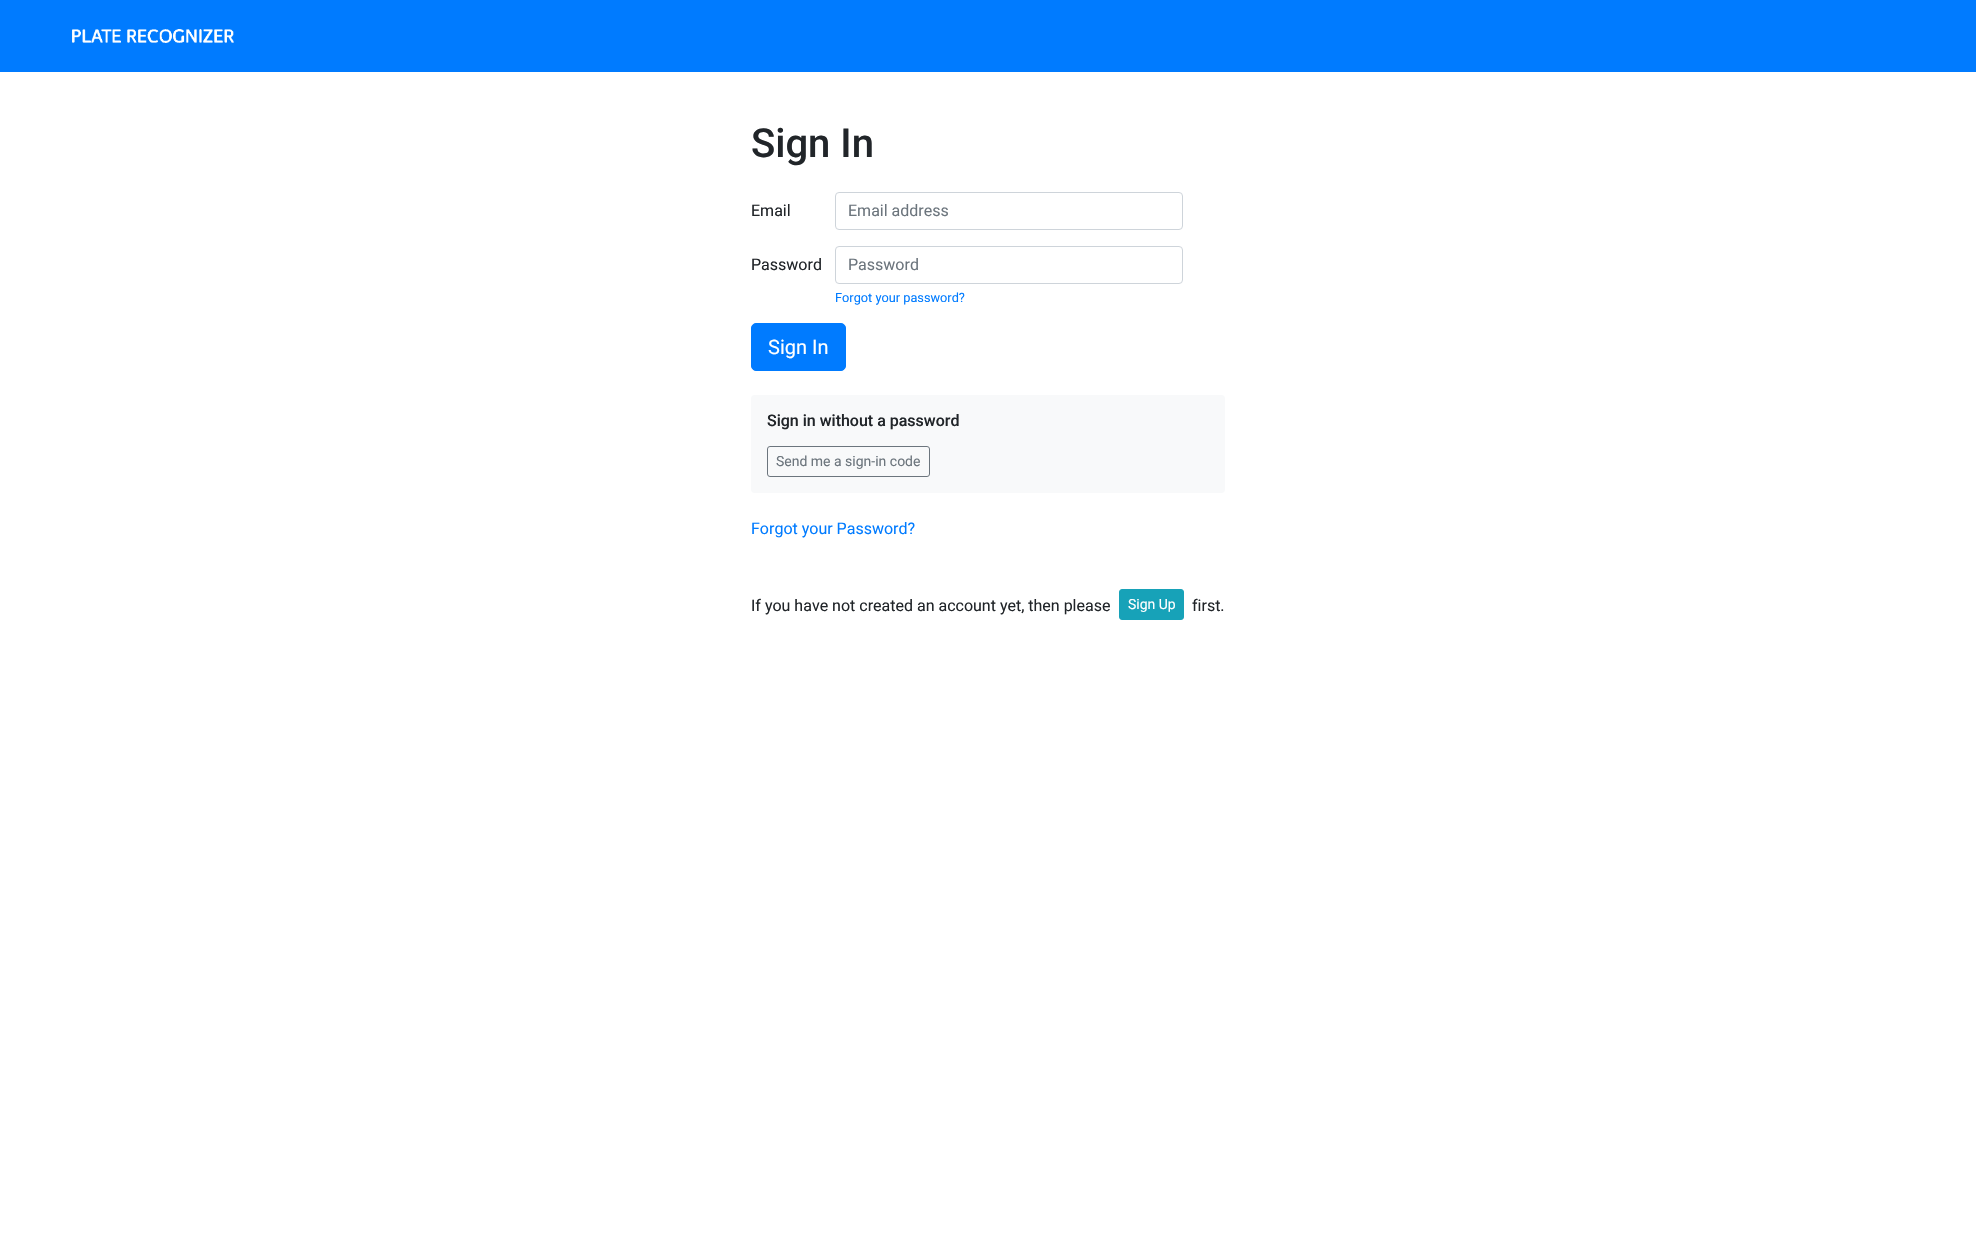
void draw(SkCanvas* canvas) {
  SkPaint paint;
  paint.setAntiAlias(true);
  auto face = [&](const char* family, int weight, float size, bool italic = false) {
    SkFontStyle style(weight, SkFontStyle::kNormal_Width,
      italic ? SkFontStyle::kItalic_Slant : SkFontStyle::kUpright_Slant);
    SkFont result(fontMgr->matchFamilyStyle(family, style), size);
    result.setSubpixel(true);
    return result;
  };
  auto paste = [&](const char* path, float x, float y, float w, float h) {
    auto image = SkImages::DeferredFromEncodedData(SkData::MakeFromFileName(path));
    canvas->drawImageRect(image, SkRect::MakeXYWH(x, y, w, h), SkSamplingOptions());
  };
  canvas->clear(0xffffffff);
  paint.setColor(0xff007bff);
  canvas->drawRect(SkRect::MakeXYWH(0, 0, 1976, 72), paint);
  paste("img/1.png", 72, 29, 162, 14);
  paint.setStroke(true);
  paint.setStrokeWidth(1);
  paint.setColor(0xffced4da);
  canvas->drawRoundRect(SkRect::MakeXYWH(835.5f, 192.5f, 347, 37), 3.5f, 3.5f, paint);
  canvas->drawRoundRect(SkRect::MakeXYWH(835.5f, 246.5f, 347, 37), 3.5f, 3.5f, paint);
  paint.setStroke(false);
  paint.setColor(0xff007bff);
  canvas->drawRoundRect(SkRect::MakeXYWH(751.5f, 323.5f, 94, 47), 4.5f, 4.5f, paint);
  paint.setStroke(true);
  canvas->drawRoundRect(SkRect::MakeXYWH(751.5f, 323.5f, 94, 47), 4.5f, 4.5f, paint);
  paint.setStroke(false);
  paint.setColor(0xfff8f9fa);
  canvas->drawRoundRect(SkRect::MakeXYWH(751, 395, 474, 98), 4, 4, paint);
  paint.setStroke(true);
  paint.setColor(0xff6c757d);
  canvas->drawRoundRect(SkRect::MakeXYWH(767.5f, 446.5f, 162, 30), 2.5f, 2.5f, paint);
  paint.setStroke(false);
  paint.setColor(0xff17a2b8);
  canvas->drawRoundRect(SkRect::MakeXYWH(1119.5f, 589.5f, 64, 30), 2.5f, 2.5f, paint);
  paint.setStroke(true);
  canvas->drawRoundRect(SkRect::MakeXYWH(1119.5f, 589.5f, 64, 30), 2.5f, 2.5f, paint);
  auto f0 = face("Roboto", 500, 40);
  paint.setStroke(false);
  paint.setColor(0xff212529);
  canvas->drawString("Sign In", 751, 157, f0, paint);
  auto f1 = face("Roboto", 400, 16);
  canvas->drawString("Email", 751, 216, f1, paint);
  paint.setColor(0xff6c757d);
  canvas->drawString("Email address", 848, 216, f1, paint);
  paint.setColor(0xff212529);
  canvas->drawString("Password", 751, 270, f1, paint);
  paint.setColor(0xff6c757d);
  canvas->drawString("Password", 848, 270, f1, paint);
  auto f2 = face("Roboto", 400, 12.75f);
  paint.setColor(0xff007bff);
  canvas->drawString("Forgot your password?", 835, 302, f2, paint);
  auto f3 = face("Roboto", 400, 20);
  paint.setColor(0xffffffff);
  canvas->drawString("Sign In", 768, 354, f3, paint);
  auto f4 = face("Roboto", 500, 16);
  paint.setColor(0xff212529);
  canvas->drawString("Sign in without a password", 767, 426, f4, paint);
  auto f5 = face("Roboto", 400, 14);
  paint.setColor(0xff6c757d);
  canvas->drawString("Send me a sign-in code", 776, 466, f5, paint);
  paint.setColor(0xff007bff);
  canvas->drawString("Forgot your Password?", 751, 534, f1, paint);
  paint.setColor(0xff212529);
  canvas->drawString("If you have not created an account yet, then please", 751, 611, f1, paint);
  paint.setColor(0xffffffff);
  canvas->drawString("Sign Up", 1128, 609, f5, paint);
  paint.setColor(0xff212529);
  canvas->drawString("first.", 1192, 611, f1, paint);
}
